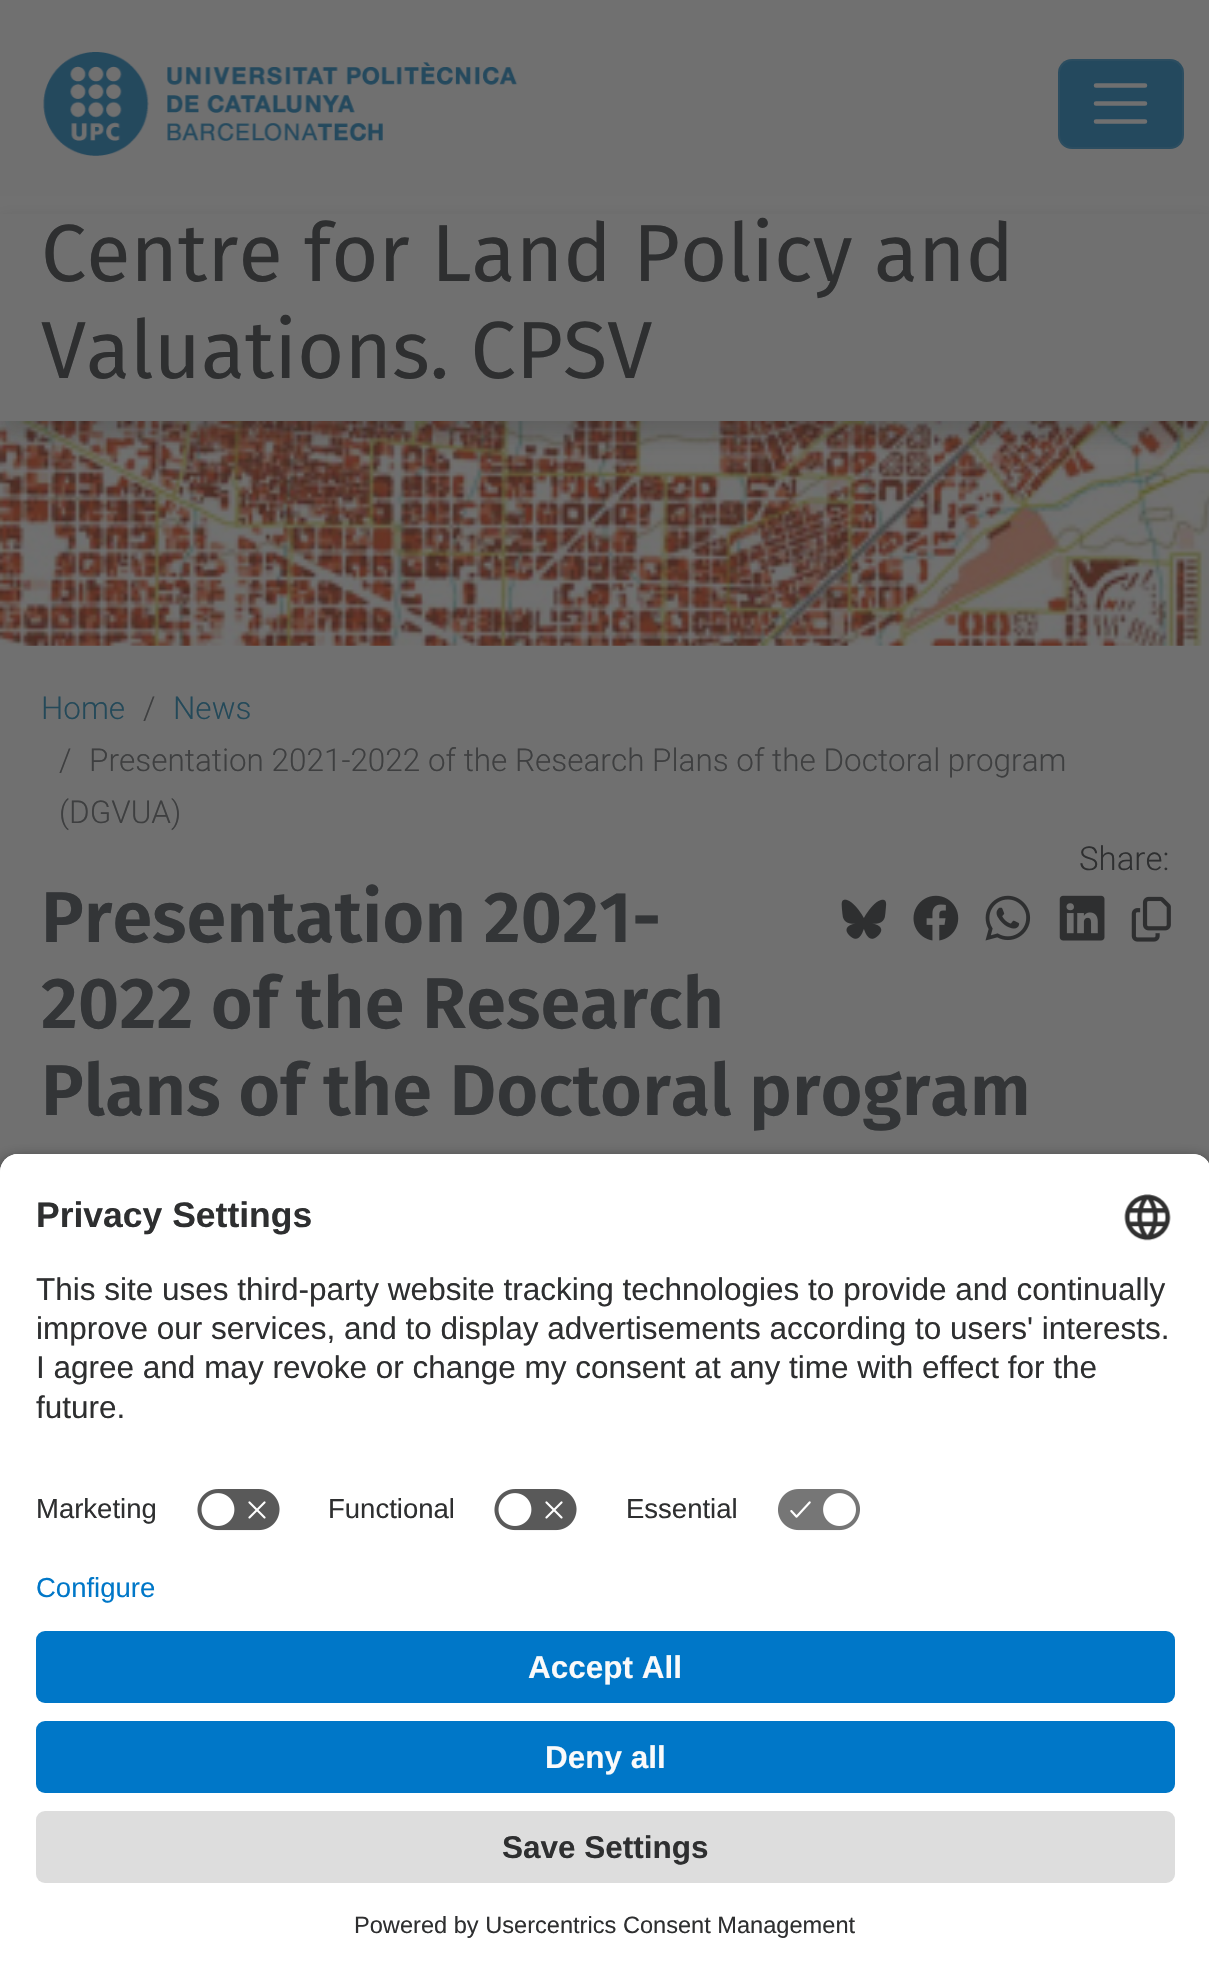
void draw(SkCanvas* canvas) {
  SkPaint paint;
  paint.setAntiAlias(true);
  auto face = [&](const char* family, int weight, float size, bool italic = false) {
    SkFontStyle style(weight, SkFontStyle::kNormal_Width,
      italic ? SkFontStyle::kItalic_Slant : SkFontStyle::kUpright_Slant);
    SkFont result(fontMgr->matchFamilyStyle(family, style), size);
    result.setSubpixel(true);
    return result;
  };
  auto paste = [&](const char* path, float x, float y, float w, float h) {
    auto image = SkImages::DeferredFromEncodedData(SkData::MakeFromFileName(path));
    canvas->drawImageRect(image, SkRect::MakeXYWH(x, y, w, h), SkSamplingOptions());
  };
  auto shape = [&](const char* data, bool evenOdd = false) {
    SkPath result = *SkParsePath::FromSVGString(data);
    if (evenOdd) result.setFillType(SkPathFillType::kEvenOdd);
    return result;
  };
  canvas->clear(0xff707070);
  paste("img/1.png", 43, 52, 475, 104);
  paint.setColor(0xff24495e);
  canvas->drawRoundRect(SkRect::MakeXYWH(1058, 59, 126, 90), 14, 14, paint);
  paint.setStroke(true);
  paint.setStrokeWidth(2);
  paint.setColor(0x1a707070);
  canvas->drawRoundRect(SkRect::MakeXYWH(1059, 60, 124, 88), 13, 13, paint);
  paint.setStrokeWidth(4.5f);
  paint.setStrokeCap(SkPaint::kRound_Cap);
  paint.setColor(0xff707070);
  canvas->drawPath(shape("M1096 85.5H1145M1096 103.5H1145M1096 121.5H1145"), paint);
  paste("img/2.png", 0, 421, 1209, 225);
  paint.setStroke(false);
  paint.setColor(0x33242424);
  paint.setMaskFilter(SkMaskFilter::MakeBlur(kNormal_SkBlurStyle, 9));
  canvas->drawRect(SkRect::MakeXYWH(0, 223, 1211, 214), paint);
  paint.setMaskFilter(nullptr);
  paint.setColor(0xff707070);
  canvas->drawRect(SkRect::MakeXYWH(0, 214, 1209, 207), paint);
  paste("img/3.png", 841, 899, 46, 40);
  paste("img/4.png", 913, 895, 46, 46);
  paste("img/5.png", 985, 895, 46, 46);
  paste("img/6.png", 1059, 895, 46, 46);
  paste("img/7.png", 1131, 896, 40, 46);
  paint.setColor(0xcc000000);
  paint.setMaskFilter(SkMaskFilter::MakeBlur(kNormal_SkBlurStyle, 8));
  canvas->drawRoundRect(SkRect::MakeXYWH(0, 1161, 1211, 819), 18, 18, paint);
  paint.setMaskFilter(nullptr);
  paint.setColor(0xffffffff);
  canvas->drawPath(shape("M18 1154H1193C1203 1154 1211 1162 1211 1172V1573H0V1172C0 1162 8 1154 18 1154Z"), paint);
  canvas->drawPath(shape("M18 1154H1193C1203 1154 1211 1162 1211 1172V1474H0V1172C0 1162 8 1154 18 1154Z"), paint);
  paste("img/8.png", 1124, 1194, 47, 47);
  paste("img/9.png", 197, 1489, 83, 42);
  paste("img/9.png", 494, 1489, 83, 42);
  paste("img/10.png", 778, 1489, 82, 42);
  canvas->drawRect(SkRect::MakeXYWH(0, 1573, 1209, 400), paint);
  paint.setColor(0xff0077c8);
  canvas->drawRoundRect(SkRect::MakeXYWH(36, 1631, 1139, 72), 9, 9, paint);
  canvas->drawRoundRect(SkRect::MakeXYWH(36, 1721, 1139, 72), 9, 9, paint);
  paint.setColor(0xffdddddd);
  canvas->drawRoundRect(SkRect::MakeXYWH(36, 1811, 1139, 72), 9, 9, paint);
  auto f0 = face("Fira Sans", 400, 81);
  paint.setColor(0xff2e2f30);
  canvas->drawString("Centre for Land Policy and", 41, 281, f0, paint);
  canvas->drawString("Valuations. CPSV", 41, 378, f0, paint);
  auto f1 = face("Roboto", 300, 31.5f);
  paint.setColor(0xff244959);
  canvas->drawString("Home", 41, 719, f1, paint);
  paint.setColor(0xff3e3f40);
  canvas->drawString("/", 143, 719, f1, paint);
  paint.setColor(0xff244959);
  canvas->drawString("News", 173, 719, f1, paint);
  paint.setColor(0xff3e3f40);
  {
    const struct { const char* s; float x, y; } items[] = {
      {"/", 59, 771},
      {"Presentation 2021-2022 of the Research Plans of the Doctoral program", 89, 771},
      {"(DGVUA)", 59, 823},
    };
    for (auto [s, x, y] : items) {
      canvas->drawString(s, x, y, f1, paint);
    }
  }
  auto f2 = face("Roboto", 300, 33);
  paint.setColor(0xff2e2f30);
  canvas->drawString("Share:", 1079, 870, f2, paint);
  auto f3 = face("Fira Sans", 600, 72);
  paint.setColor(0xff333537);
  {
    const struct { const char* s; float x, y; } items[] = {
      {"Presentation 2021-", 41, 942},
      {"2022 of the Research", 41, 1028},
      {"Plans of the Doctoral program", 41, 1115},
    };
    for (auto [s, x, y] : items) {
      canvas->drawString(s, x, y, f3, paint);
    }
  }
  auto f4 = face("Liberation Sans", 700, 35.5f);
  paint.setColor(0xff2e2f30);
  canvas->drawString("Privacy Settings", 36, 1227, f4, paint);
  auto f5 = face("Liberation Sans", 400, 31.5f);
  {
    const struct { const char* s; float x, y; } items[] = {
      {"This site uses third-party website tracking technologies to provide and continually", 36, 1300},
      {"improve our services, and to display advertisements according to users' interests.", 36, 1339},
      {"I agree and may revoke or change my consent at any time with effect for the", 36, 1378},
      {"future.", 36, 1418},
    };
    for (auto [s, x, y] : items) {
      canvas->drawString(s, x, y, f5, paint);
    }
  }
  auto f6 = face("Liberation Sans", 400, 27.5f);
  {
    const struct { const char* s; float x, y; } items[] = {
      {"Marketing", 36, 1518},
      {"Functional", 328, 1518},
      {"Essential", 626, 1518},
    };
    for (auto [s, x, y] : items) {
      canvas->drawString(s, x, y, f6, paint);
    }
  }
  paint.setColor(0xff0077c8);
  canvas->drawString("Configure", 36, 1597, f6, paint);
  auto f7 = face("Liberation Sans", 700, 31.5f);
  paint.setColor(0xfffafafa);
  canvas->drawString("Accept All", 528, 1678, f7, paint);
  canvas->drawString("Deny all", 545, 1768, f7, paint);
  paint.setColor(0xff2e2f30);
  canvas->drawString("Save Settings", 502, 1858, f7, paint);
  auto f8 = face("Liberation Sans", 400, 23.6f);
  canvas->drawString("Powered by Usercentrics Consent Management", 354, 1933, f8, paint);
}
